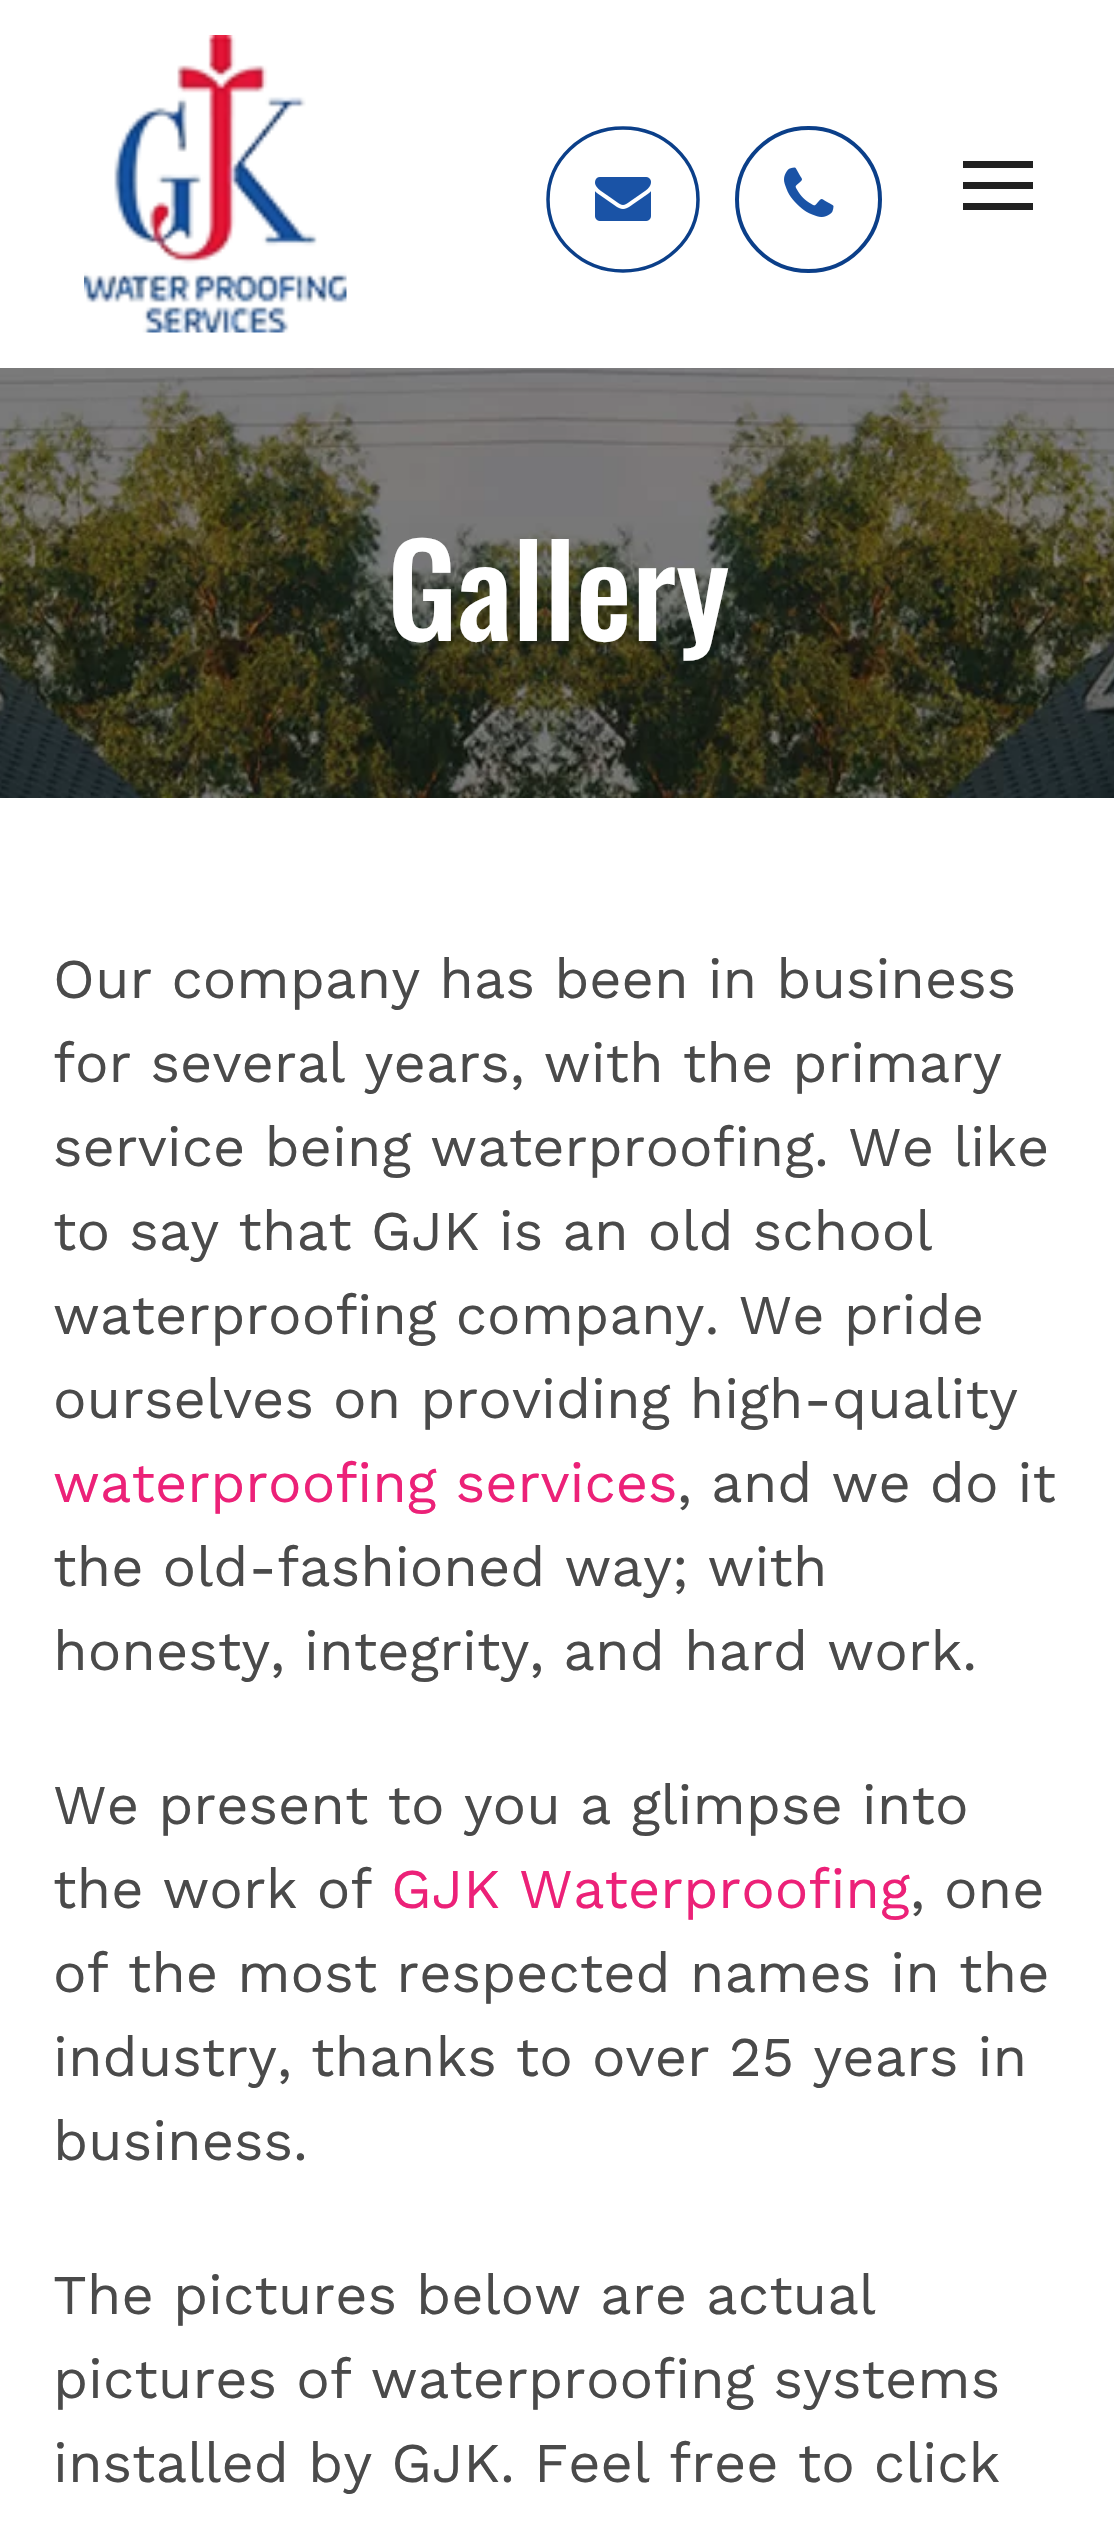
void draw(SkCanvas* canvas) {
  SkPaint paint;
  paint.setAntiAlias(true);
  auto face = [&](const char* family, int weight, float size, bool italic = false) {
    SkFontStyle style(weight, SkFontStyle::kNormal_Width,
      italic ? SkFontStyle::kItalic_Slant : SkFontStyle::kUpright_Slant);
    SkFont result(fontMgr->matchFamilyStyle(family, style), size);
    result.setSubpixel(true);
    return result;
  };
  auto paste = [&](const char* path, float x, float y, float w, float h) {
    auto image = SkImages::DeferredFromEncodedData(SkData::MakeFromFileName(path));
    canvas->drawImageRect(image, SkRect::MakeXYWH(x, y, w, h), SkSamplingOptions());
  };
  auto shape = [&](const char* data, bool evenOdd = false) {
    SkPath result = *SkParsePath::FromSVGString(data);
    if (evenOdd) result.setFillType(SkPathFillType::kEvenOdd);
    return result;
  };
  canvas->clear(0xffffffff);
  paint.setStroke(true);
  paint.setStrokeWidth(3.5f);
  paint.setColor(0xff0b3f89);
  canvas->drawPath(shape("M623 128C664.5 128 698 160 698 199.5C698 239 664.5 271 623 271C581.5 271 548 239 548 199.5C548 160 581.5 128 623 128Z"), paint);
  paste("img/1.png", 595, 177, 56, 44);
  paint.setStrokeWidth(4);
  canvas->drawCircle(808.5f, 199.5f, 71.5f, paint);
  paste("img/2.png", 784, 167, 50, 50);
  paste("img/3.png", 84, 35, 263, 298);
  paint.setStroke(false);
  {
    const struct { float x, y, w, h; SkColor color; } items[] = {
      {963, 161, 70, 7, 0xff212121},
      {963, 182, 70, 7, 0xff212121},
      {963, 203, 70, 7, 0xff212121},
    };
    for (auto [x, y, w, h, color] : items) {
      paint.setColor(color);
      canvas->drawRect(SkRect::MakeXYWH(x, y, w, h), paint);
    }
  }
  paste("img/4.png", 0, 368, 1114, 430);
  auto f0 = face("Oswald", 500, 126);
  paint.setColor(0xffffffff);
  canvas->drawString("Gallery", 387, 641, f0, paint);
  auto f1 = face("Work Sans", 400, 56);
  paint.setColor(0xff4a4a4a);
  {
    const struct { const char* s; float x, y; } items[] = {
      {"Our company has been in business", 53, 998},
      {"for several years, with the primary", 53, 1082},
      {"service being waterproofing. We like", 53, 1166},
      {"to say that GJK is an old school", 53, 1250},
      {"waterproofing company. We pride", 53, 1334},
      {"ourselves on providing high-quality", 53, 1418},
    };
    for (auto [s, x, y] : items) {
      canvas->drawString(s, x, y, f1, paint);
    }
  }
  paint.setColor(0xffec2178);
  canvas->drawString("waterproofing services", 53, 1502, f1, paint);
  paint.setColor(0xff4a4a4a);
  {
    const struct { const char* s; float x, y; } items[] = {
      {", and we do it", 677, 1502},
      {"the old-fashioned way; with", 53, 1586},
      {"honesty, integrity, and hard work.", 53, 1670},
      {"We present to you a glimpse into", 53, 1824},
      {"the work of", 53, 1908},
    };
    for (auto [s, x, y] : items) {
      canvas->drawString(s, x, y, f1, paint);
    }
  }
  paint.setColor(0xffec2178);
  canvas->drawString("GJK Waterproofing", 391, 1908, f1, paint);
  paint.setColor(0xff4a4a4a);
  {
    const struct { const char* s; float x, y; } items[] = {
      {", one", 910, 1908},
      {"of the most respected names in the", 53, 1992},
      {"industry, thanks to over 25 years in", 53, 2076},
      {"business.", 53, 2160},
      {"The pictures below are actual", 53, 2314},
      {"pictures of waterproofing systems", 53, 2398},
      {"installed by GJK. Feel free to click", 53, 2482},
    };
    for (auto [s, x, y] : items) {
      canvas->drawString(s, x, y, f1, paint);
    }
  }
}
